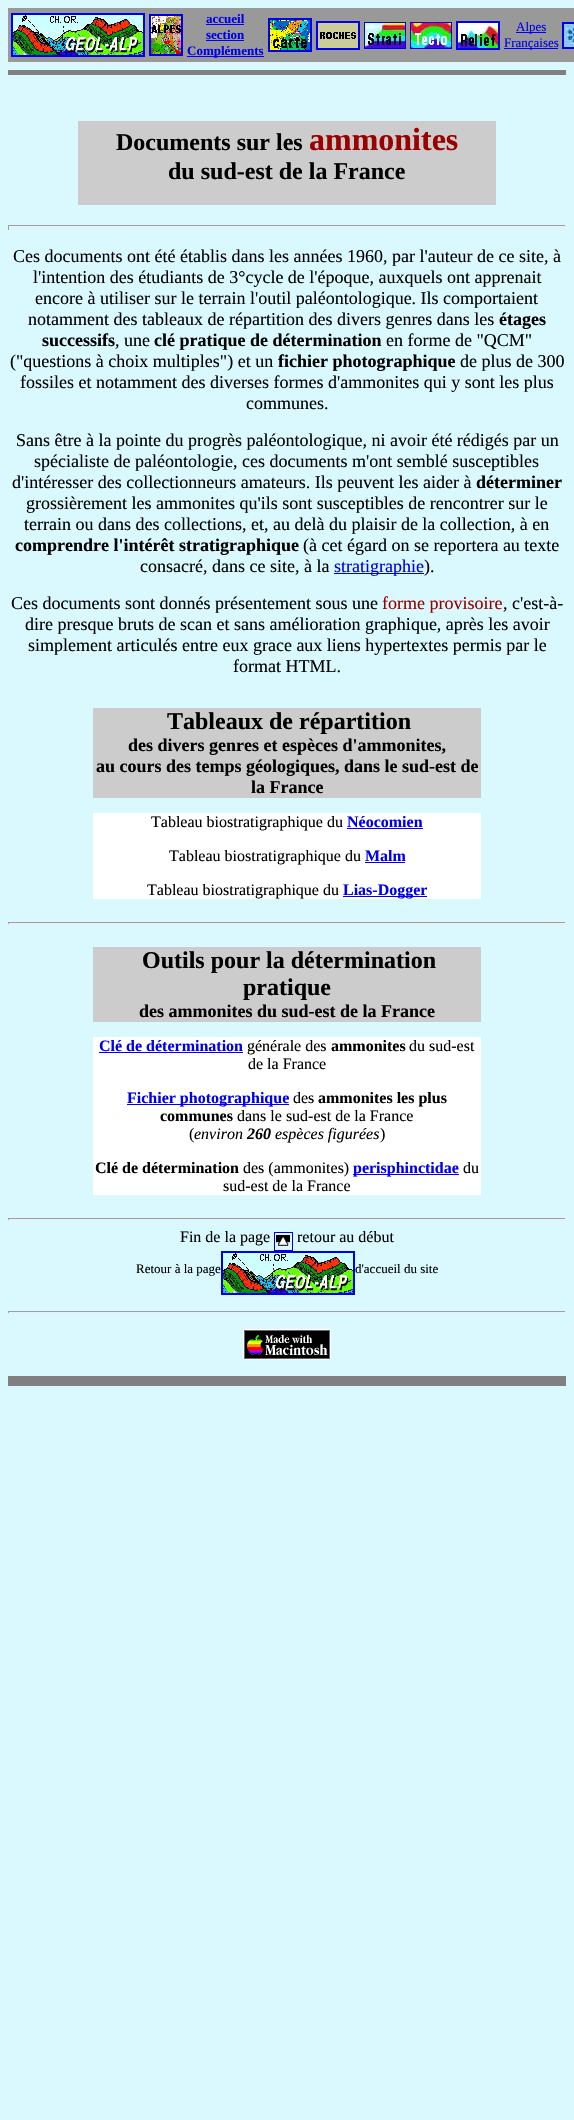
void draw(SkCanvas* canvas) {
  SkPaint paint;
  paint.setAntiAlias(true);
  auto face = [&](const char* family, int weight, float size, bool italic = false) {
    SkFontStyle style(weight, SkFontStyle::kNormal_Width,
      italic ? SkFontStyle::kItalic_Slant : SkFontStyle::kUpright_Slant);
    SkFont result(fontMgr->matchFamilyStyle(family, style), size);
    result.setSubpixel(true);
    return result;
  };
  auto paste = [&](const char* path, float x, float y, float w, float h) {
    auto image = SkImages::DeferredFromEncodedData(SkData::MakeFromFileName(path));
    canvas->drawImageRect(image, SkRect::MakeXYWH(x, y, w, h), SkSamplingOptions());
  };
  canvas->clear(0xffd9f9ff);
  paint.setColor(0xff999999);
  canvas->drawRect(SkRect::MakeXYWH(8, 8, 566, 54), paint);
  paint.setStroke(true);
  paint.setStrokeWidth(2);
  paint.setColor(0xff0000ee);
  canvas->drawRect(SkRect::MakeXYWH(12, 14, 132, 42), paint);
  paste("img/1.png", 13, 15, 130, 40);
  canvas->drawRect(SkRect::MakeXYWH(150, 15, 32, 40), paint);
  paste("img/2.png", 151, 16, 30, 38);
  paint.setStroke(false);
  {
    const struct { float x, y, w, h; SkColor color; } items[] = {
      {206, 24, 38, 1, 0xff0000ee},
      {206, 40, 38, 1, 0xff0000ee},
      {187, 56, 77, 1, 0xff0000ee},
    };
    for (auto [x, y, w, h, color] : items) {
      paint.setColor(color);
      canvas->drawRect(SkRect::MakeXYWH(x, y, w, h), paint);
    }
  }
  paint.setStroke(true);
  canvas->drawRect(SkRect::MakeXYWH(269, 19, 42, 32), paint);
  paste("img/3.png", 270, 20, 40, 30);
  canvas->drawRect(SkRect::MakeXYWH(317, 22, 42, 27), paint);
  paste("img/4.png", 318, 23, 40, 25);
  paint.setStrokeWidth(1);
  canvas->drawRect(SkRect::MakeXYWH(364.5f, 22.5f, 41, 26), paint);
  paste("img/5.png", 365, 23, 40, 25);
  canvas->drawRect(SkRect::MakeXYWH(410.5f, 22.5f, 41, 26), paint);
  paste("img/6.png", 411, 23, 40, 25);
  paint.setStrokeWidth(2);
  canvas->drawRect(SkRect::MakeXYWH(457, 22, 42, 27), paint);
  paste("img/7.png", 458, 23, 40, 25);
  paint.setStroke(false);
  canvas->drawRect(SkRect::MakeXYWH(516, 32, 30, 1), paint);
  canvas->drawRect(SkRect::MakeXYWH(504, 48, 54, 1), paint);
  paint.setStroke(true);
  canvas->drawRect(SkRect::MakeXYWH(563, 23, 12, 25), paint);
  paste("img/8.png", 564, 24, 10, 23);
  paint.setStroke(false);
  {
    const struct { float x, y, w, h; SkColor color; } items[] = {
      {8, 70, 558, 5, 0xff808080},
      {78, 121, 418, 84, 0xffcccccc},
      {8, 225, 558, 1, 0xff9f9f9f},
      {565, 225, 1, 5, 0xffeeeeee},
      {8, 229, 558, 1, 0xffeeeeee},
      {8, 225, 1, 5, 0xff9f9f9f},
      {334, 573, 90, 1, 0xff0000ee},
      {93, 708, 388, 90, 0xffcccccc},
      {93, 813, 388, 86, 0xffffffff},
      {347, 828, 76, 1, 0xff0000ee},
      {365, 862, 40, 1, 0xff0000ee},
      {343, 896, 84, 1, 0xff0000ee},
      {8, 922, 558, 1, 0xff9f9f9f},
      {565, 922, 1, 2, 0xffeeeeee},
      {8, 923, 558, 1, 0xffeeeeee},
      {8, 922, 1, 2, 0xff9f9f9f},
      {93, 947, 388, 75, 0xffcccccc},
      {93, 1037, 388, 158, 0xffffffff},
      {99, 1052, 144, 1, 0xff0000ee},
      {127, 1104, 162, 1, 0xff0000ee},
      {353, 1174, 106, 1, 0xff0000ee},
      {8, 1218, 558, 1, 0xff9f9f9f},
      {565, 1218, 1, 2, 0xffeeeeee},
      {8, 1219, 558, 1, 0xffeeeeee},
      {8, 1218, 1, 2, 0xff9f9f9f},
    };
    for (auto [x, y, w, h, color] : items) {
      paint.setColor(color);
      canvas->drawRect(SkRect::MakeXYWH(x, y, w, h), paint);
    }
  }
  paint.setStroke(true);
  paint.setStrokeWidth(1);
  paint.setColor(0xff0000ee);
  canvas->drawRect(SkRect::MakeXYWH(274.5f, 1232.5f, 18, 18), paint);
  paste("img/9.png", 276, 1235, 14, 11);
  paint.setStrokeWidth(2);
  canvas->drawRect(SkRect::MakeXYWH(222, 1252, 132, 42), paint);
  paste("img/1.png", 223, 1253, 130, 40);
  paint.setStroke(false);
  {
    const struct { float x, y, w, h; SkColor color; } items[] = {
      {8, 1311, 558, 1, 0xff9f9f9f},
      {565, 1311, 1, 2, 0xffeeeeee},
      {8, 1312, 558, 1, 0xffeeeeee},
      {8, 1311, 1, 2, 0xff9f9f9f},
    };
    for (auto [x, y, w, h, color] : items) {
      paint.setColor(color);
      canvas->drawRect(SkRect::MakeXYWH(x, y, w, h), paint);
    }
  }
  paste("img/10.png", 243, 1329, 88, 31);
  paint.setColor(0xff808080);
  canvas->drawRect(SkRect::MakeXYWH(8, 1376, 558, 10), paint);
  auto f0 = face("Liberation Serif", 700, 13);
  paint.setColor(0xff0000ee);
  {
    const struct { const char* s; float x, y; } items[] = {
      {"accueil", 206, 23},
      {"section", 206, 39},
      {"Compléments", 187, 55},
    };
    for (auto [s, x, y] : items) {
      canvas->drawString(s, x, y, f0, paint);
    }
  }
  auto f1 = face("Liberation Serif", 400, 13);
  canvas->drawString("Alpes", 516, 31, f1, paint);
  canvas->drawString("Françaises", 504, 47, f1, paint);
  auto f2 = face("Liberation Serif", 700, 24);
  paint.setColor(0xff000000);
  canvas->drawString("Documents sur les", 116, 150, f2, paint);
  auto f3 = face("Liberation Serif", 700, 32);
  paint.setColor(0xff990000);
  canvas->drawString("ammonites", 309, 150, f3, paint);
  paint.setColor(0xff000000);
  canvas->drawString("du sud-est de la France", 168, 179, f2, paint);
  auto f4 = face("Liberation Serif", 400, 18);
  {
    const struct { const char* s; float x, y; } items[] = {
      {"Ces documents ont été établis dans les années 1960, par l'auteur de ce site, à", 13, 262},
      {"l'intention des étudiants de 3°cycle de l'époque, auxquels ont apprenait", 33, 283},
      {"encore à utiliser sur le terrain l'outil paléontologique. Ils comportaient", 35, 304},
      {"notamment des tableaux de répartition des divers genres dans les", 28, 325},
    };
    for (auto [s, x, y] : items) {
      canvas->drawString(s, x, y, f4, paint);
    }
  }
  auto f5 = face("Liberation Serif", 700, 18);
  canvas->drawString("étages", 499, 325, f5, paint);
  canvas->drawString("successifs", 42, 346, f5, paint);
  canvas->drawString(", une", 115, 346, f4, paint);
  canvas->drawString("clé pratique de détermination", 154, 346, f5, paint);
  canvas->drawString("en forme de \"QCM\"", 386, 346, f4, paint);
  canvas->drawString("(\"questions à choix multiples\") et un", 10, 367, f4, paint);
  canvas->drawString("fichier photographique", 278, 367, f5, paint);
  {
    const struct { const char* s; float x, y; } items[] = {
      {"de plus de 300", 460, 367},
      {"fossiles et notamment des diverses formes d'ammonites qui y sont les plus", 20, 388},
      {"communes.", 246, 409},
      {"Sans être à la pointe du progrès paléontologique, ni avoir été rédigés par un", 16, 446},
      {"spécialiste de paléontologie, ces documents m'ont semblé susceptibles", 34, 467},
      {"d'intéresser des collectionneurs amateurs. Ils peuvent les aider à", 12, 488},
    };
    for (auto [s, x, y] : items) {
      canvas->drawString(s, x, y, f4, paint);
    }
  }
  canvas->drawString("déterminer", 476, 488, f5, paint);
  canvas->drawString("grossièrement les ammonites qu'ils sont susceptibles de rencontrer sur le", 26, 509, f4, paint);
  canvas->drawString("terrain ou dans des collections, et, au delà du plaisir de la collection, à en", 24, 530, f4, paint);
  canvas->drawString("comprendre l'intérêt stratigraphique", 15, 551, f5, paint);
  canvas->drawString("(à cet égard on se reportera au texte", 303, 551, f4, paint);
  canvas->drawString("consacré, dans ce site, à la", 140, 572, f4, paint);
  paint.setColor(0xff0000ee);
  canvas->drawString("stratigraphie", 334, 572, f4, paint);
  paint.setColor(0xff000000);
  canvas->drawString(").", 424, 572, f4, paint);
  canvas->drawString("Ces documents sont donnés présentement sous une", 11, 609, f4, paint);
  paint.setColor(0xff990000);
  canvas->drawString("forme provisoire", 382, 609, f4, paint);
  paint.setColor(0xff000000);
  {
    const struct { const char* s; float x, y; } items[] = {
      {", c'est-à-", 503, 609},
      {"dire presque bruts de scan et sans amélioration graphique, après les avoir", 25, 630},
      {"simplement articulés entre eux grace aux liens hypertextes permis par le", 28, 651},
      {"format HTML.", 233, 672},
    };
    for (auto [s, x, y] : items) {
      canvas->drawString(s, x, y, f4, paint);
    }
  }
  canvas->drawString("Tableaux de répartition", 167, 729, f2, paint);
  {
    const struct { const char* s; float x, y; } items[] = {
      {"des divers genres et espèces d'ammonites,", 128, 751},
      {"au cours des temps géologiques, dans le sud-est de", 96, 772},
      {"la France", 251, 793},
    };
    for (auto [s, x, y] : items) {
      canvas->drawString(s, x, y, f5, paint);
    }
  }
  auto f6 = face("Liberation Serif", 400, 16);
  canvas->drawString("Tableau biostratigraphique du", 151, 827, f6, paint);
  auto f7 = face("Liberation Serif", 700, 16);
  paint.setColor(0xff0000ee);
  canvas->drawString("Néocomien", 347, 827, f7, paint);
  paint.setColor(0xff000000);
  canvas->drawString("Tableau biostratigraphique du", 169, 861, f6, paint);
  paint.setColor(0xff0000ee);
  canvas->drawString("Malm", 365, 861, f7, paint);
  paint.setColor(0xff000000);
  canvas->drawString("Tableau biostratigraphique du", 147, 895, f6, paint);
  paint.setColor(0xff0000ee);
  canvas->drawString("Lias-Dogger", 343, 895, f7, paint);
  paint.setColor(0xff000000);
  canvas->drawString("Outils pour la détermination", 142, 968, f2, paint);
  canvas->drawString("pratique", 243, 995, f2, paint);
  canvas->drawString("des ammonites du sud-est de la France", 139, 1017, f5, paint);
  paint.setColor(0xff0000ee);
  canvas->drawString("Clé de détermination", 99, 1051, f7, paint);
  paint.setColor(0xff000000);
  canvas->drawString("générale des", 247, 1051, f6, paint);
  canvas->drawString("ammonites", 331, 1051, f7, paint);
  canvas->drawString("du sud-est", 409, 1051, f6, paint);
  canvas->drawString("de la France", 248, 1069, f6, paint);
  paint.setColor(0xff0000ee);
  canvas->drawString("Fichier photographique", 127, 1103, f7, paint);
  paint.setColor(0xff000000);
  canvas->drawString("des", 293, 1103, f6, paint);
  canvas->drawString("ammonites les plus", 318, 1103, f7, paint);
  canvas->drawString("communes", 160, 1121, f7, paint);
  canvas->drawString("dans le sud-est de la France", 237, 1121, f6, paint);
  canvas->drawString("(", 189, 1139, f6, paint);
  auto f8 = face("Liberation Serif", 400, 16, true);
  canvas->drawString("environ", 194, 1139, f8, paint);
  auto f9 = face("Liberation Serif", 700, 16, true);
  canvas->drawString("260", 247, 1139, f9, paint);
  canvas->drawString("espèces figurées", 275, 1139, f8, paint);
  canvas->drawString(")", 380, 1139, f6, paint);
  canvas->drawString("Clé de détermination", 95, 1173, f7, paint);
  canvas->drawString("des (ammonites)", 243, 1173, f6, paint);
  paint.setColor(0xff0000ee);
  canvas->drawString("perisphinctidae", 353, 1173, f7, paint);
  paint.setColor(0xff000000);
  {
    const struct { const char* s; float x, y; } items[] = {
      {"du", 463, 1173},
      {"sud-est de la France", 223, 1191},
      {"Fin de la page", 180, 1242},
      {"retour au début", 297, 1242},
    };
    for (auto [s, x, y] : items) {
      canvas->drawString(s, x, y, f6, paint);
    }
  }
  canvas->drawString("Retour à la page", 136, 1273, f1, paint);
  canvas->drawString("d'accueil du site", 355, 1273, f1, paint);
}
